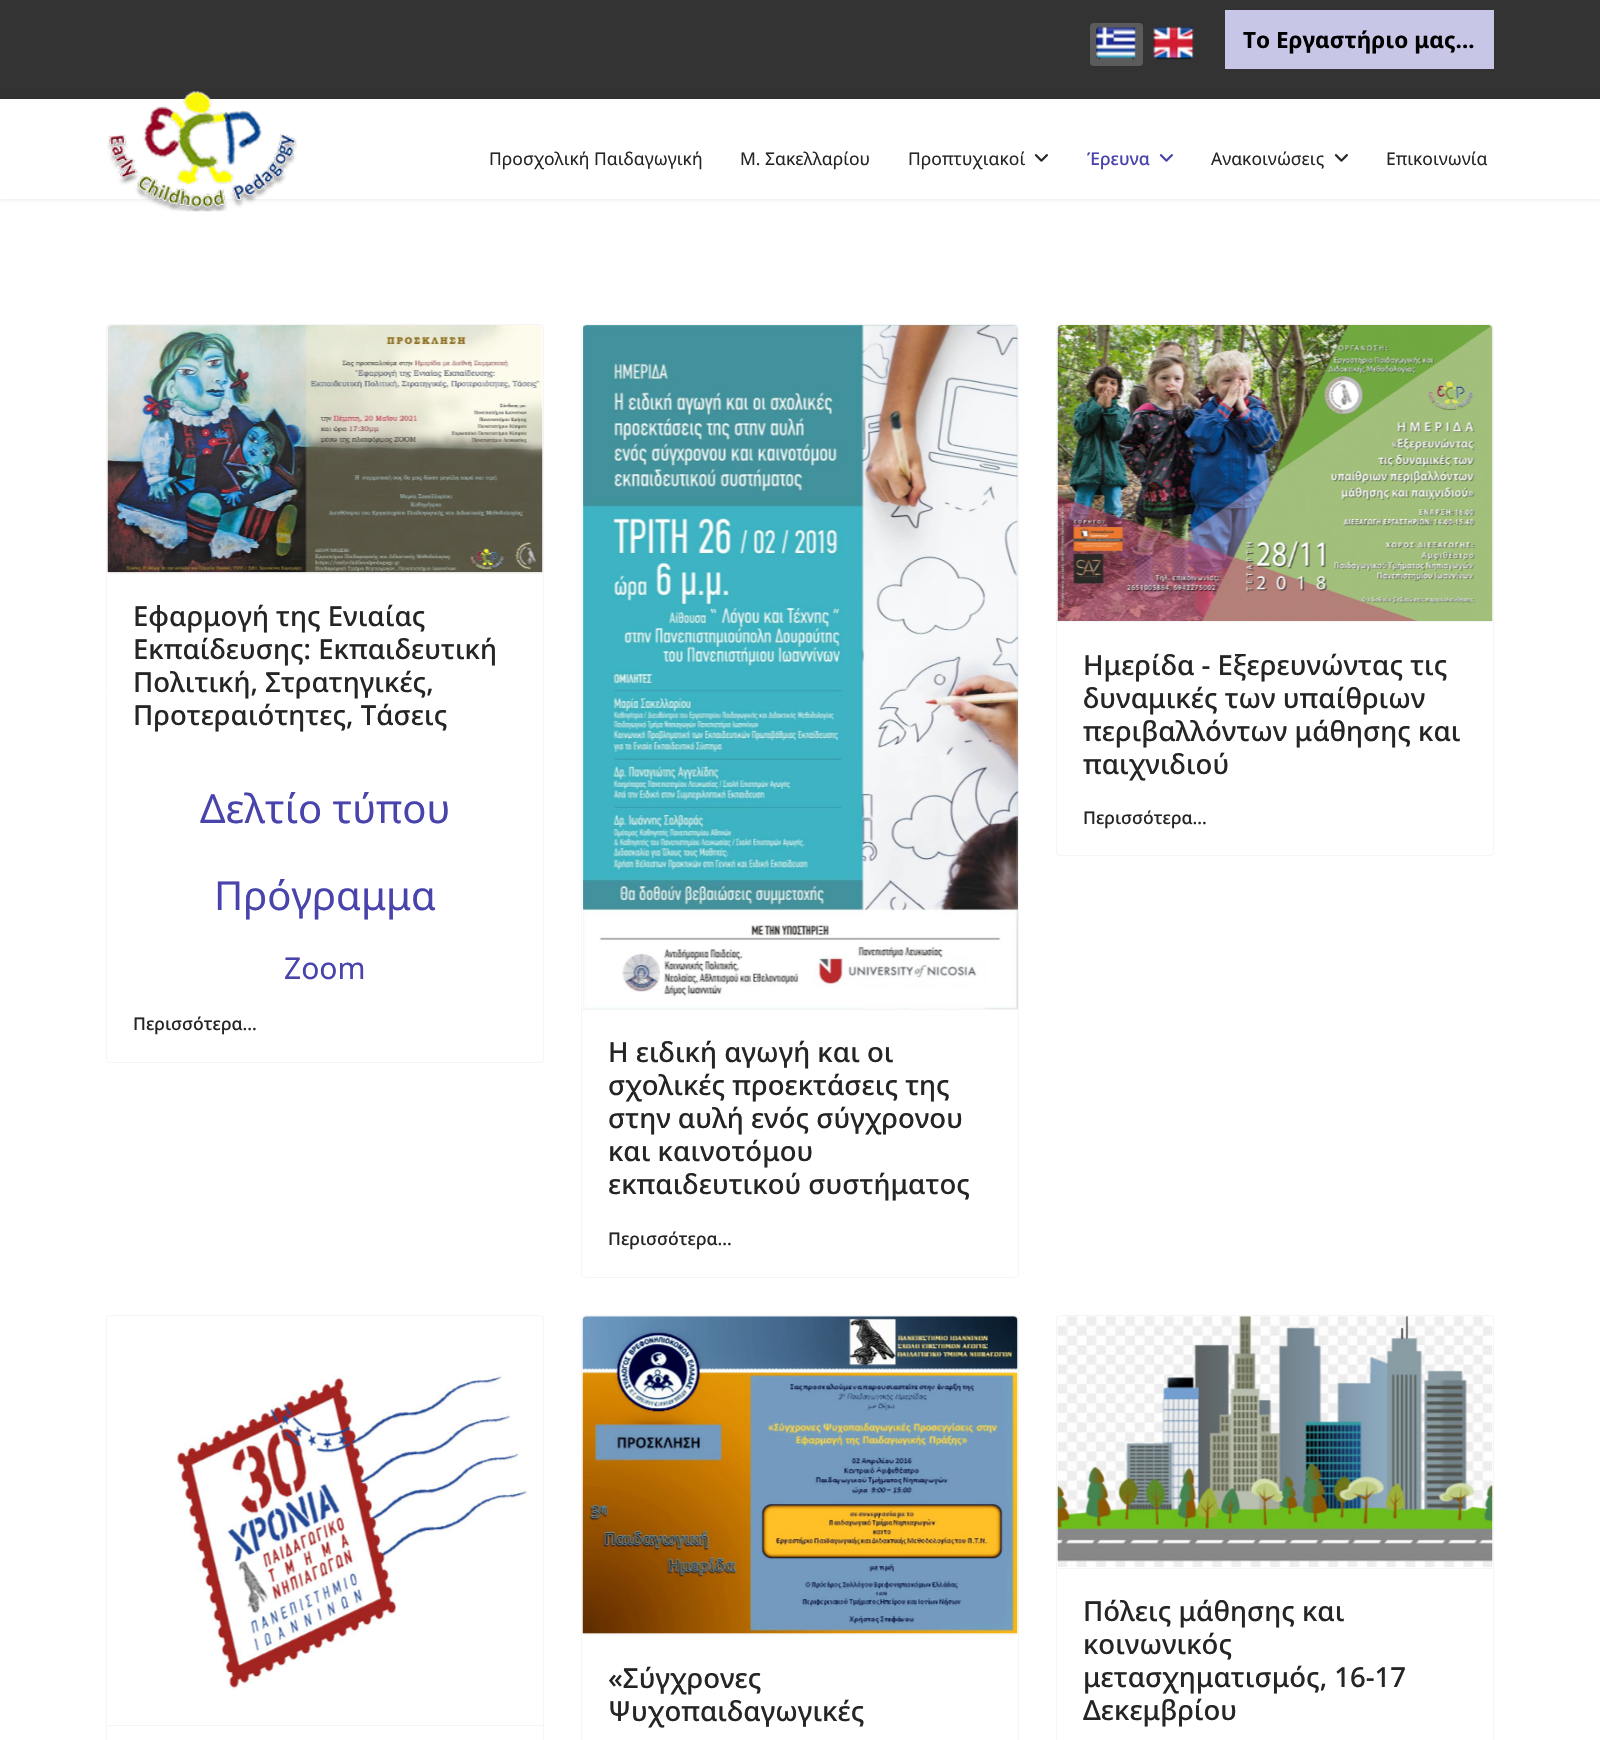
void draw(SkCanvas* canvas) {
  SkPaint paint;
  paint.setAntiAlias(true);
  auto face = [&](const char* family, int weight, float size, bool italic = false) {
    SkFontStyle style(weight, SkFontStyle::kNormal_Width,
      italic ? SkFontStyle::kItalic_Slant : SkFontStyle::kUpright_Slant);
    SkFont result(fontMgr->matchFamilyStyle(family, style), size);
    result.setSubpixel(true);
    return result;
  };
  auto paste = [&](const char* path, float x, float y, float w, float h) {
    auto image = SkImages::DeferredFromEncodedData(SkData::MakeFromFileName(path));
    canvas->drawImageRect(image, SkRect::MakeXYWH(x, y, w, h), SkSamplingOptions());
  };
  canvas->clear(0xffffffff);
  paint.setColor(0xff333333);
  canvas->drawRect(SkRect::MakeXYWH(0, 0, 1600, 99), paint);
  paint.setColor(0xff5b5b5b);
  canvas->drawRoundRect(SkRect::MakeXYWH(1090, 23, 53, 43), 4, 4, paint);
  paste("img/1.png", 1096, 26, 40, 34);
  paste("img/2.png", 1153, 26, 41, 34);
  paint.setColor(0xffc8c6e6);
  canvas->drawRect(SkRect::MakeXYWH(1225, 10, 269, 59), paint);
  paint.setColor(0x1a000000);
  paint.setMaskFilter(SkMaskFilter::MakeBlur(kNormal_SkBlurStyle, 2.5f));
  canvas->drawRect(SkRect::MakeXYWH(0, 99, 1600, 100), paint);
  paint.setMaskFilter(nullptr);
  paint.setColor(0xffffffff);
  canvas->drawRect(SkRect::MakeXYWH(0, 99, 1600, 100), paint);
  paste("img/3.png", 107, 91, 190, 121);
  paste("img/4.png", 1034, 154, 14, 8);
  paste("img/5.png", 1159, 154, 14, 8);
  paste("img/4.png", 1334, 154, 14, 8);
  paint.setStroke(true);
  paint.setStrokeWidth(1);
  paint.setColor(0xfff5f5f5);
  canvas->drawRoundRect(SkRect::MakeXYWH(106.5f, 324.5f, 437, 738), 3.5f, 3.5f, paint);
  paint.setStroke(false);
  canvas->drawRect(SkRect::MakeXYWH(108, 573, 435, 1), paint);
  paste("img/6.png", 107, 325, 436, 248);
  paint.setStroke(true);
  canvas->drawRoundRect(SkRect::MakeXYWH(1056.5f, 324.5f, 437, 531), 3.5f, 3.5f, paint);
  paint.setStroke(false);
  canvas->drawRect(SkRect::MakeXYWH(1058, 621, 435, 1), paint);
  paste("img/7.png", 1057, 325, 436, 296);
  paint.setStroke(true);
  canvas->drawRoundRect(SkRect::MakeXYWH(581.5f, 324.5f, 437, 953), 3.5f, 3.5f, paint);
  paint.setStroke(false);
  canvas->drawRect(SkRect::MakeXYWH(583, 1009, 435, 1), paint);
  paste("img/8.png", 583, 325, 435, 684);
  paint.setStroke(true);
  canvas->drawRoundRect(SkRect::MakeXYWH(106.5f, 1315.5f, 437, 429), 3.5f, 3.5f, paint);
  paint.setStroke(false);
  canvas->drawRect(SkRect::MakeXYWH(108, 1725, 435, 1), paint);
  paste("img/9.png", 177, 1374, 352, 316);
  paint.setStroke(true);
  canvas->drawRoundRect(SkRect::MakeXYWH(581.5f, 1315.5f, 437, 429), 3.5f, 3.5f, paint);
  paint.setStroke(false);
  canvas->drawRect(SkRect::MakeXYWH(583, 1634, 435, 1), paint);
  paste("img/10.png", 582, 1316, 436, 318);
  paint.setStroke(true);
  canvas->drawRoundRect(SkRect::MakeXYWH(1056.5f, 1315.5f, 437, 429), 3.5f, 3.5f, paint);
  paint.setStroke(false);
  canvas->drawRect(SkRect::MakeXYWH(1058, 1568, 435, 1), paint);
  paste("img/11.png", 1057, 1316, 436, 251);
  auto f0 = face("Noto Sans", 700, 22.5f);
  paint.setColor(0xff000000);
  canvas->drawString("Το Εργαστήριο μας...", 1243, 48, f0, paint);
  auto f1 = face("Noto Sans", 400, 17.5f);
  paint.setColor(0xff252525);
  {
    const struct { const char* s; float x, y; } items[] = {
      {"Προσχολική Παιδαγωγική", 489, 165},
      {"Μ. Σακελλαρίου", 740, 165},
      {"Προπτυχιακοί", 908, 165},
    };
    for (auto [s, x, y] : items) {
      canvas->drawString(s, x, y, f1, paint);
    }
  }
  auto f2 = face("Noto Sans", 500, 17.5f);
  paint.setColor(0xff4943ac);
  canvas->drawString("Έρευνα", 1087, 165, f2, paint);
  paint.setColor(0xff252525);
  canvas->drawString("Ανακοινώσεις", 1211, 165, f1, paint);
  canvas->drawString("Επικοινωνία", 1386, 165, f1, paint);
  auto f3 = face("Noto Sans", 500, 27.5f);
  {
    const struct { const char* s; float x, y; } items[] = {
      {"Εφαρμογή της Ενιαίας", 133, 626},
      {"Εκπαίδευσης: Εκπαιδευτική", 133, 659},
      {"Πολιτική, Στρατηγικές,", 133, 692},
      {"Προτεραιότητες, Τάσεις", 133, 725},
    };
    for (auto [s, x, y] : items) {
      canvas->drawString(s, x, y, f3, paint);
    }
  }
  auto f4 = face("Noto Sans", 400, 40);
  paint.setColor(0xff4943ac);
  canvas->drawString("Δελτίο τύπου", 200, 823, f4, paint);
  canvas->drawString("Πρόγραμμα", 214, 910, f4, paint);
  auto f5 = face("Noto Sans", 400, 30);
  canvas->drawString("Zoom", 284, 979, f5, paint);
  paint.setColor(0xff252525);
  canvas->drawString("Περισσότερα...", 133, 1030, f2, paint);
  {
    const struct { const char* s; float x, y; } items[] = {
      {"Ημερίδα - Εξερευνώντας τις", 1083, 675},
      {"δυναμικές των υπαίθριων", 1083, 708},
      {"περιβαλλόντων μάθησης και", 1083, 741},
      {"παιχνιδιού", 1083, 774},
    };
    for (auto [s, x, y] : items) {
      canvas->drawString(s, x, y, f3, paint);
    }
  }
  canvas->drawString("Περισσότερα...", 1083, 824, f2, paint);
  {
    const struct { const char* s; float x, y; } items[] = {
      {"Η ειδική αγωγή και οι", 608, 1062},
      {"σχολικές προεκτάσεις της", 608, 1095},
      {"στην αυλή ενός σύγχρονου", 608, 1128},
      {"και καινοτόμου", 608, 1161},
      {"εκπαιδευτικού συστήματος", 608, 1194},
    };
    for (auto [s, x, y] : items) {
      canvas->drawString(s, x, y, f3, paint);
    }
  }
  canvas->drawString("Περισσότερα...", 608, 1245, f2, paint);
  {
    const struct { const char* s; float x, y; } items[] = {
      {"«Σύγχρονες", 608, 1688},
      {"Ψυχοπαιδαγωγικές", 608, 1721},
      {"Πόλεις μάθησης και", 1083, 1621},
      {"κοινωνικός", 1083, 1654},
      {"μετασχηματισμός, 16-17", 1083, 1687},
      {"Δεκεμβρίου", 1083, 1720},
    };
    for (auto [s, x, y] : items) {
      canvas->drawString(s, x, y, f3, paint);
    }
  }
}
